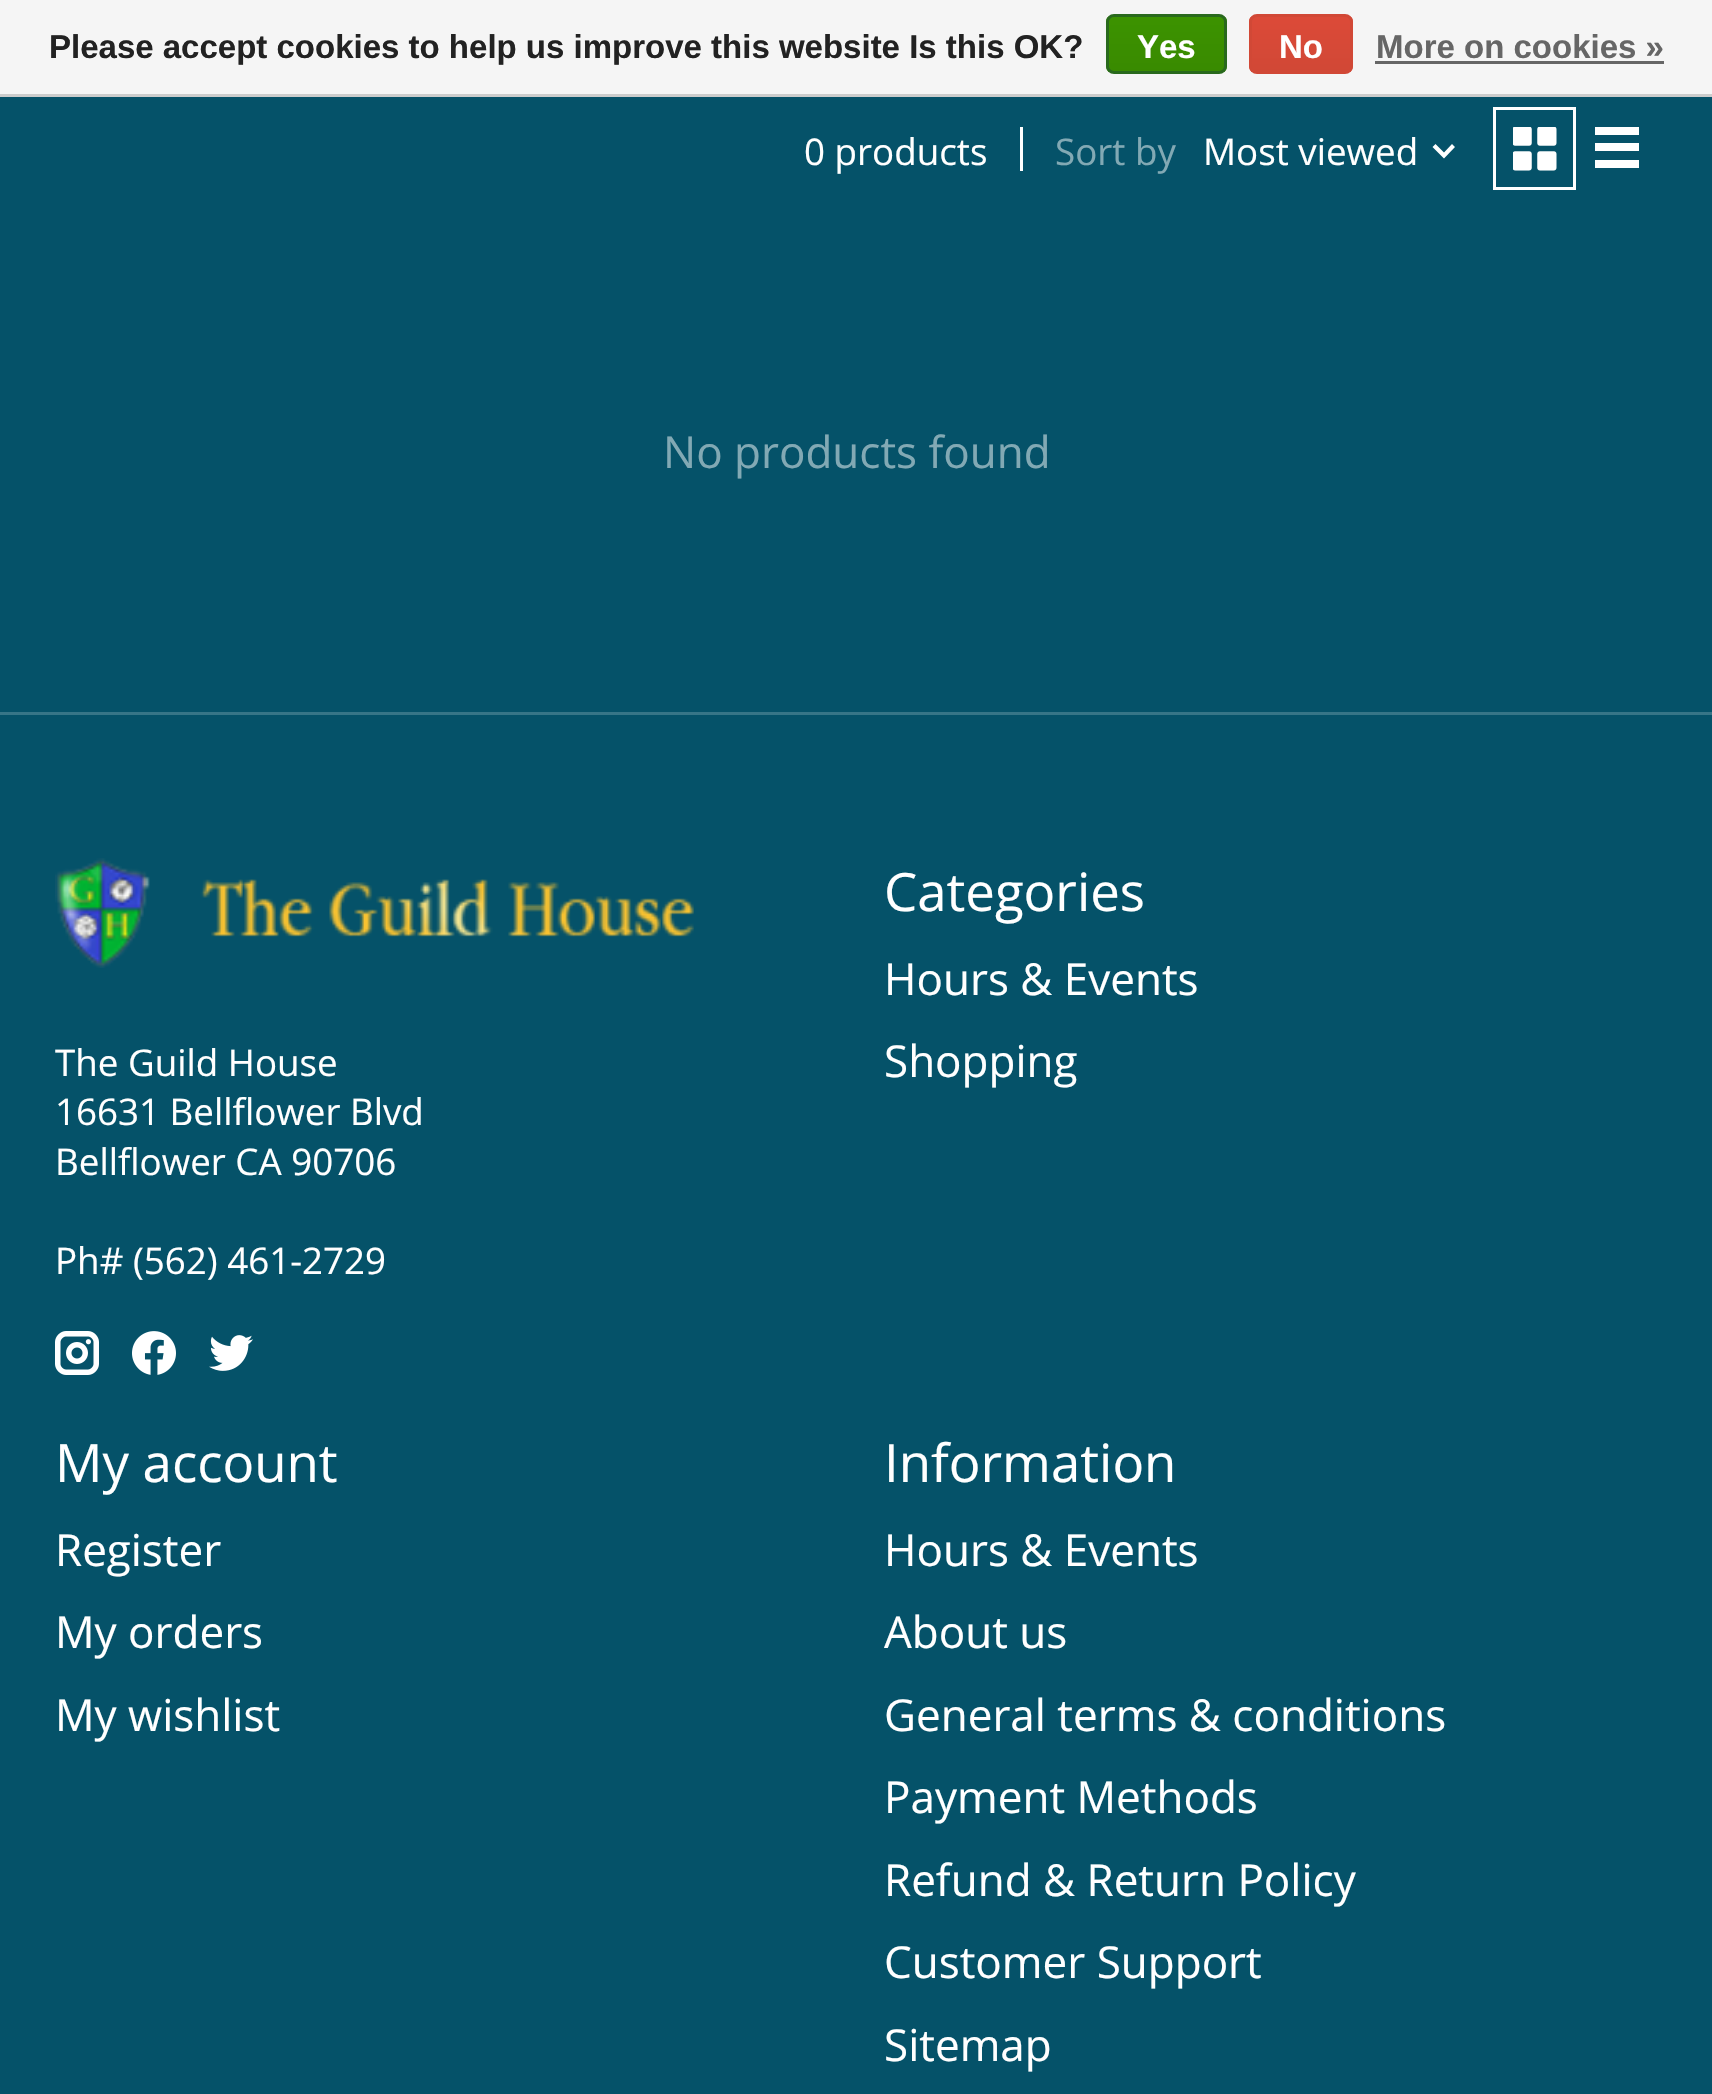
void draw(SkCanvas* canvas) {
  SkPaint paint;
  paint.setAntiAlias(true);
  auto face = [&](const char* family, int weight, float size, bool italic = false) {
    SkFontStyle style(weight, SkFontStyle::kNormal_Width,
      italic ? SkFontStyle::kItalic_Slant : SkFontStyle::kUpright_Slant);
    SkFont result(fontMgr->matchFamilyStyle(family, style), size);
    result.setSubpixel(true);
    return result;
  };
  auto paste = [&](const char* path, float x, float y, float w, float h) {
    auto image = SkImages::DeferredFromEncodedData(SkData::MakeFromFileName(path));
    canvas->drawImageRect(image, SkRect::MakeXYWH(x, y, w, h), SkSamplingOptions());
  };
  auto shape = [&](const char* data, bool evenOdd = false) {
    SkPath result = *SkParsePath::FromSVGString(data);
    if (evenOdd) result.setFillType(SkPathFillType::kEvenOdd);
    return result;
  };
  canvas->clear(0xff055269);
  paint.setColor(0xfff5f5f5);
  canvas->drawRect(SkRect::MakeXYWH(0, 0, 1712, 94), paint);
  paint.setColor(0xffcccccc);
  canvas->drawRect(SkRect::MakeXYWH(0, 94, 1712, 3), paint);
  canvas->save();
  canvas->clipPath(shape("M1114 14H1219C1223.5 14 1227 17.5 1227 22V66C1227 70.5 1223.5 74 1219 74H1114C1109.5 74 1106 70.5 1106 66V22C1106 17.5 1109.5 14 1114 14Z"), true);
  {
    const SkColor colors[] = {0xff3c9300, 0xff398a00};
    const float stops[] = {0, 1};
    const SkPoint ends[] = {{1166, 16}, {1166, 72}};
    paint.setShader(SkGradientShader::MakeLinear(ends, colors, stops, 2, SkTileMode::kClamp));
    paint.setAlpha(255);
  }
  canvas->drawRect(SkRect::MakeXYWH(1106, 17, 121, 55), paint);
  canvas->restore();
  paint.setStroke(true);
  paint.setStrokeWidth(3);
  paint.setShader(nullptr);
  paint.setColor(0xff29691d);
  canvas->drawRoundRect(SkRect::MakeXYWH(1107.5f, 15.5f, 118, 57), 6.5f, 6.5f, paint);
  canvas->save();
  canvas->clipPath(shape("M1257 14H1345C1349.5 14 1353 17.5 1353 22V66C1353 70.5 1349.5 74 1345 74H1257C1252.5 74 1249 70.5 1249 66V22C1249 17.5 1252.5 14 1257 14Z"), true);
  paint.setStroke(false);
  {
    const SkColor colors[] = {0xffdc4a38, 0xffd14836};
    const float stops[] = {0, 1};
    const SkPoint ends[] = {{1301, 16}, {1301, 72}};
    paint.setShader(SkGradientShader::MakeLinear(ends, colors, stops, 2, SkTileMode::kClamp));
    paint.setAlpha(255);
  }
  canvas->drawRect(SkRect::MakeXYWH(1249, 17, 104, 55), paint);
  canvas->restore();
  paint.setStroke(true);
  paint.setShader(nullptr);
  paint.setColor(0xffd14836);
  canvas->drawRoundRect(SkRect::MakeXYWH(1250.5f, 15.5f, 101, 57), 6.5f, 6.5f, paint);
  paint.setStroke(false);
  paint.setColor(0xff666666);
  canvas->drawRect(SkRect::MakeXYWH(1375, 61, 289, 3), paint);
  paint.setColor(0xffffffff);
  canvas->drawRect(SkRect::MakeXYWH(1020, 127, 3, 44), paint);
  canvas->drawPath(shape("M1444 158.5L1432.5 147L1435.5 144L1444 152.5L1452 144L1455 147Z"), paint);
  paint.setStroke(true);
  canvas->drawRect(SkRect::MakeXYWH(1494.5f, 108.5f, 80, 80), paint);
  paste("img/1.png", 1513, 127, 44, 44);
  paint.setStroke(false);
  {
    const struct { float x, y, w, h; SkColor color; } items[] = {
      {1595, 127, 44, 8, 0xffffffff},
      {1595, 143, 44, 8, 0xffffffff},
      {1595, 160, 44, 8, 0xffffffff},
      {0, 712, 1712, 3, 0xff377587},
    };
    for (auto [x, y, w, h, color] : items) {
      paint.setColor(color);
      canvas->drawRect(SkRect::MakeXYWH(x, y, w, h), paint);
    }
  }
  paste("img/2.png", 55, 858, 639, 110);
  paste("img/3.png", 55, 1331, 44, 44);
  paste("img/4.png", 132, 1331, 44, 44);
  paste("img/5.png", 209, 1335, 44, 36);
  auto f0 = face("Liberation Sans", 700, 33);
  paint.setColor(0xff222222);
  canvas->drawString("Please accept cookies to help us improve this website Is this OK?", 49, 58, f0, paint);
  paint.setColor(0xffffffff);
  canvas->drawString("Yes", 1137, 58, f0, paint);
  canvas->drawString("No", 1279, 58, f0, paint);
  paint.setColor(0xff666666);
  canvas->drawString("More on cookies »", 1376, 58, f0, paint);
  auto f1 = face("Open Sans", 400, 36.75f);
  paint.setColor(0xffffffff);
  canvas->drawString("0 products", 804, 165, f1, paint);
  paint.setColor(0xff82a9b4);
  canvas->drawString("Sort by", 1055, 165, f1, paint);
  paint.setColor(0xffffffff);
  canvas->drawString("Most viewed", 1203, 165, f1, paint);
  auto f2 = face("Open Sans", 400, 44);
  paint.setColor(0xff82a9b4);
  canvas->drawString("No products found", 663, 468, f2, paint);
  auto f3 = face("Open Sans", 400, 52.75f);
  paint.setColor(0xffffffff);
  canvas->drawString("Categories", 884, 911, f3, paint);
  canvas->drawString("Hours & Events", 884, 995, f2, paint);
  canvas->drawString("Shopping", 884, 1077, f2, paint);
  {
    const struct { const char* s; float x, y; } items[] = {
      {"The Guild House", 55, 1076},
      {"16631 Bellflower Blvd", 55, 1125},
      {"Bellflower CA 90706", 55, 1175},
      {"Ph# (562) 461-2729", 55, 1274},
    };
    for (auto [s, x, y] : items) {
      canvas->drawString(s, x, y, f1, paint);
    }
  }
  canvas->drawString("My account", 55, 1482, f3, paint);
  {
    const struct { const char* s; float x, y; } items[] = {
      {"Register", 55, 1566},
      {"My orders", 55, 1648},
      {"My wishlist", 55, 1731},
    };
    for (auto [s, x, y] : items) {
      canvas->drawString(s, x, y, f2, paint);
    }
  }
  canvas->drawString("Information", 884, 1482, f3, paint);
  {
    const struct { const char* s; float x, y; } items[] = {
      {"Hours & Events", 884, 1566},
      {"About us", 884, 1648},
      {"General terms & conditions", 884, 1731},
      {"Payment Methods", 884, 1813},
      {"Refund & Return Policy", 884, 1896},
      {"Customer Support", 884, 1978},
      {"Sitemap", 884, 2061},
    };
    for (auto [s, x, y] : items) {
      canvas->drawString(s, x, y, f2, paint);
    }
  }
}
